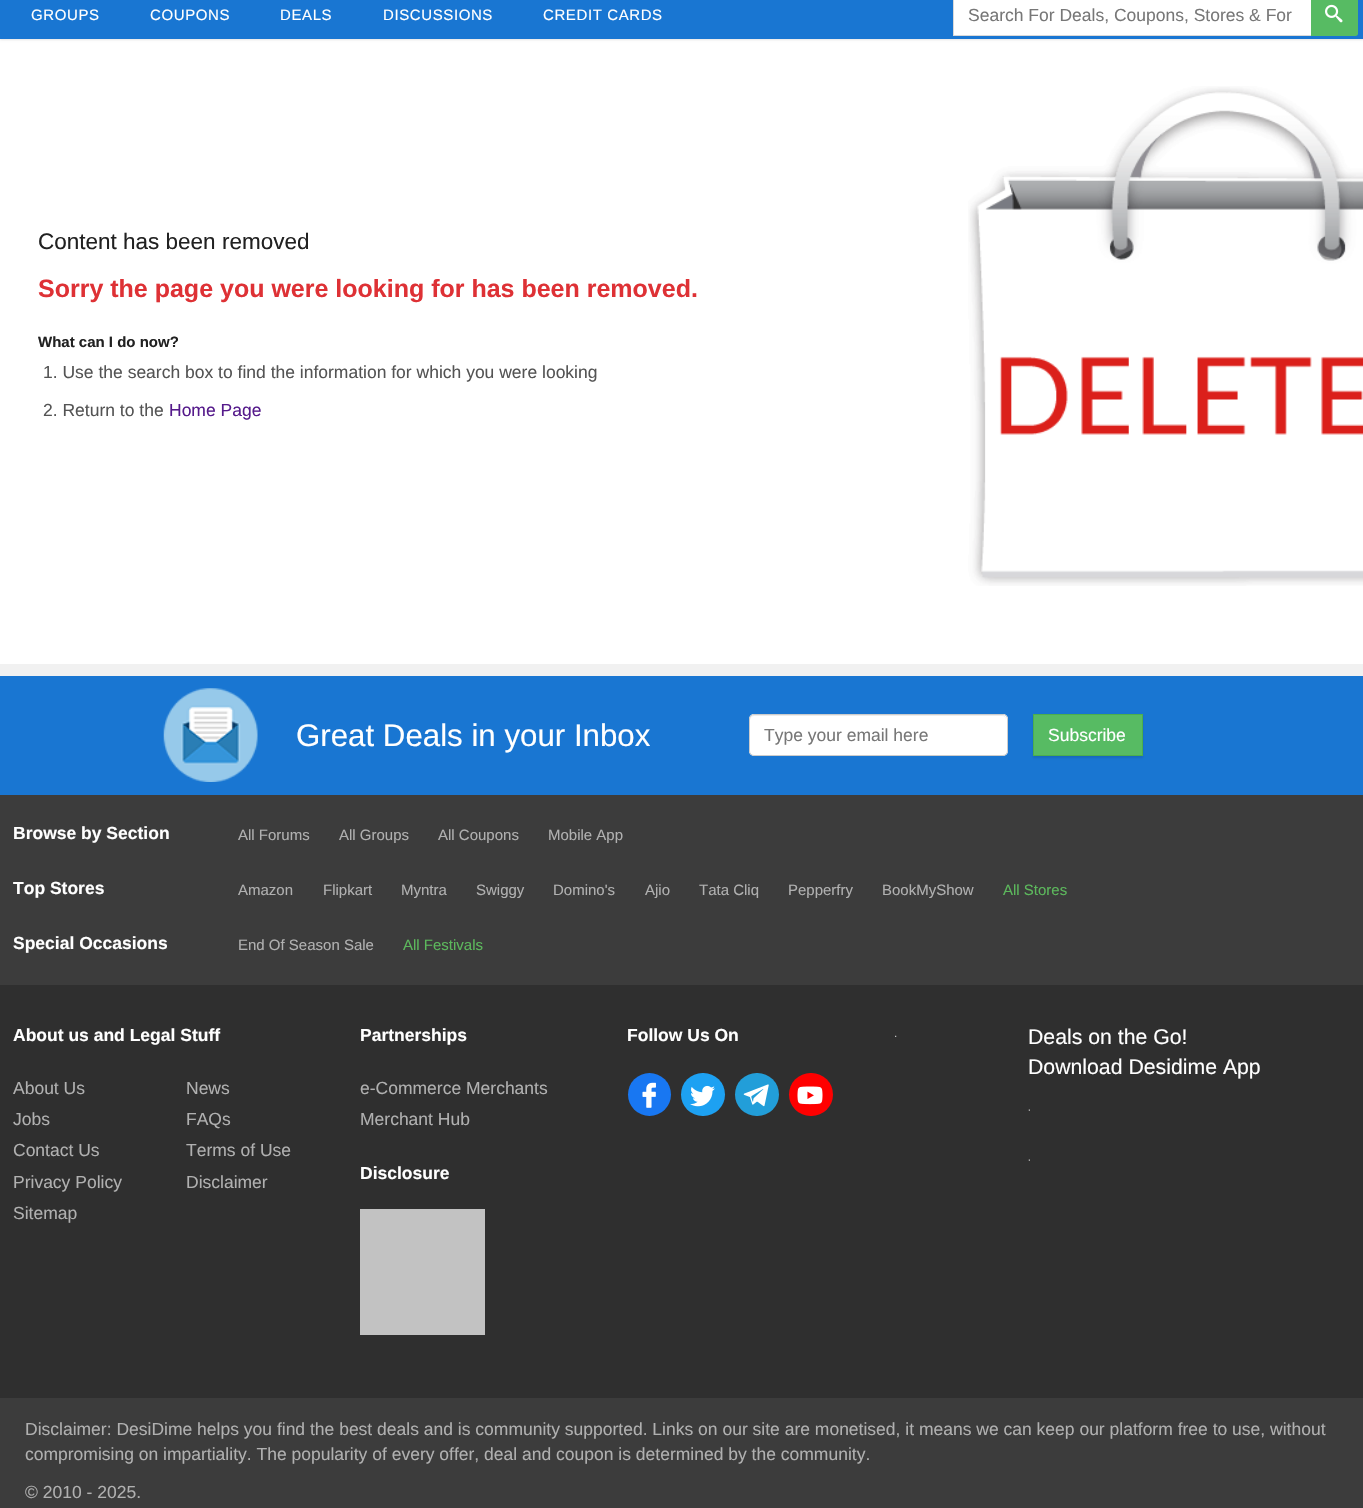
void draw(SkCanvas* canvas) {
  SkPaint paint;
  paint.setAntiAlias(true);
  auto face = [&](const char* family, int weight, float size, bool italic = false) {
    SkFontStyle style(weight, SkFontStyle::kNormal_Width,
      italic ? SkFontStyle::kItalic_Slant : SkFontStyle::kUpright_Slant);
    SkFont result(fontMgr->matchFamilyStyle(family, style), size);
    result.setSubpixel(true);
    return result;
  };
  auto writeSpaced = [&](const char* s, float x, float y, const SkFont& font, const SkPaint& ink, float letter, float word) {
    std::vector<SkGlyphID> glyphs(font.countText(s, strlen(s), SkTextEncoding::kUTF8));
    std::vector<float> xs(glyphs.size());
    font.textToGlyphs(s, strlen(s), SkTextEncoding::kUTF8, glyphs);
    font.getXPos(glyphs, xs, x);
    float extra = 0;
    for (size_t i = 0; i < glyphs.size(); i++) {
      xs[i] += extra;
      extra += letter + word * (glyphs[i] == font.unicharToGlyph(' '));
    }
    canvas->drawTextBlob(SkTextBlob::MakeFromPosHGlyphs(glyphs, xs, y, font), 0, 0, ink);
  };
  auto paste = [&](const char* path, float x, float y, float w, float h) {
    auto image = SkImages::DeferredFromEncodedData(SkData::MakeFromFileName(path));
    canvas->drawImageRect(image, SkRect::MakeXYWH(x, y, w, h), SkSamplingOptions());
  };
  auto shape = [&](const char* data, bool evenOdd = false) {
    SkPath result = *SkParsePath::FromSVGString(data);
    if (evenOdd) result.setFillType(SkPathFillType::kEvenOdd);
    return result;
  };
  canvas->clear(0xfff1f1f1);
  paint.setColor(0xffffffff);
  canvas->drawRect(SkRect::MakeXYWH(0, 39, 1363, 625), paint);
  paint.setColor(0x1a000000);
  paint.setMaskFilter(SkMaskFilter::MakeBlur(kNormal_SkBlurStyle, 1));
  canvas->drawRect(SkRect::MakeXYWH(0, -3, 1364, 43), paint);
  paint.setMaskFilter(nullptr);
  paint.setColor(0xff1976d2);
  canvas->drawRect(SkRect::MakeXYWH(0, 0, 1363, 39), paint);
  paint.setColor(0xffffffff);
  canvas->drawRect(SkRect::MakeXYWH(954, 0, 357, 35), paint);
  paint.setStroke(true);
  paint.setStrokeWidth(1);
  paint.setColor(0xffd9d9d9);
  canvas->drawRect(SkRect::MakeXYWH(953.5f, -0.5f, 364, 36), paint);
  paint.setStroke(false);
  paint.setColor(0xff57bb63);
  canvas->drawPath(shape("M1311-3H1355.5C1357-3 1358-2 1358-.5V33.5C1358 35 1357 36 1355.5 36H1311Z"), paint);
  paste("img/1.png", 1325, 4, 18, 19);
  paste("img/2.png", 968, 86, 395, 500);
  paint.setColor(0xff1976d2);
  canvas->drawRect(SkRect::MakeXYWH(0, 676, 1363, 119), paint);
  paste("img/3.png", 163, 688, 95, 94);
  paint.setColor(0xffffffff);
  canvas->drawRoundRect(SkRect::MakeXYWH(749, 714, 259, 42), 5, 5, paint);
  paint.setColor(0xffececec);
  canvas->drawPath(shape("M754 716H1002C1005 716 1006 718 1006 720V719C1006 717 1004 715 1002 715H754C752 715 750 717 750 719V720C750 718 752 716 754 716Z"), paint);
  paint.setStroke(true);
  paint.setColor(0xffcccccc);
  canvas->drawRoundRect(SkRect::MakeXYWH(749.5f, 714.5f, 258, 41), 4.5f, 4.5f, paint);
  paint.setStroke(false);
  paint.setColor(0x1a000000);
  paint.setMaskFilter(SkMaskFilter::MakeBlur(kNormal_SkBlurStyle, 1));
  canvas->drawRect(SkRect::MakeXYWH(1033, 715, 110, 43), paint);
  paint.setMaskFilter(nullptr);
  paint.setColor(0xff57bb63);
  canvas->drawRect(SkRect::MakeXYWH(1033.5f, 714.5f, 109, 41), paint);
  paint.setStroke(true);
  paint.setColor(0xff4cae4c);
  canvas->drawRect(SkRect::MakeXYWH(1033.5f, 714.5f, 109, 41), paint);
  paint.setStroke(false);
  {
    const struct { float x, y, w, h; SkColor color; } items[] = {
      {0, 795, 1363, 190, 0xff3c3c3c},
      {0, 985, 1363, 413, 0xff2f2f2f},
      {360, 1209, 125, 126, 0xffc2c2c2},
    };
    for (auto [x, y, w, h, color] : items) {
      paint.setColor(color);
      canvas->drawRect(SkRect::MakeXYWH(x, y, w, h), paint);
    }
  }
  paint.setColor(0xff1877f2);
  canvas->drawCircle(649.5f, 1094.5f, 21.5f, paint);
  paste("img/4.png", 642, 1082, 14, 26);
  paint.setColor(0xff1da1f2);
  canvas->drawRoundRect(SkRect::MakeXYWH(681, 1073, 44, 43), 21.5f, 21.5f, paint);
  paste("img/5.png", 690, 1085, 25, 22);
  paint.setColor(0xff229ed9);
  canvas->drawRoundRect(SkRect::MakeXYWH(735, 1073, 44, 43), 21.5f, 21.5f, paint);
  paste("img/6.png", 743, 1084, 26, 23);
  paint.setColor(0xffff0000);
  canvas->drawRoundRect(SkRect::MakeXYWH(789, 1073, 44, 43), 21.5f, 21.5f, paint);
  paste("img/7.png", 797, 1086, 26, 19);
  paste("img/8.png", 895, 1035, 2, 2);
  paste("img/9.png", 1028, 1109, 2, 2);
  paste("img/9.png", 1028, 1159, 2, 2);
  paint.setColor(0xff3c3c3c);
  canvas->drawRect(SkRect::MakeXYWH(0, 1398, 1363, 110), paint);
  auto f0 = face("Liberation Sans", 400, 15);
  paint.setColor(0xffffffff);
  {
    const struct { const char* s; float x, y; } items[] = {
      {"GROUPS", 31, 20},
      {"COUPONS", 150, 20},
      {"DEALS", 280, 20},
      {"DISCUSSIONS", 383, 20},
      {"CREDIT CARDS", 543, 20},
    };
    for (auto [s, x, y] : items) {
      writeSpaced(s, x, y, f0, paint, 0.6f, 0);
    }
  }
  auto f1 = face("Liberation Sans", 400, 17.5f);
  paint.setColor(0xff777777);
  canvas->drawString("Search For Deals, Coupons, Stores & For", 968, 21, f1, paint);
  auto f2 = face("Liberation Sans", 400, 22.5f);
  paint.setColor(0xff212121);
  canvas->drawString("Content has been removed", 38, 249, f2, paint);
  auto f3 = face("Liberation Sans", 700, 25);
  paint.setColor(0xffde3135);
  canvas->drawString("Sorry the page you were looking for has been removed.", 38, 297, f3, paint);
  auto f4 = face("Liberation Sans", 700, 15);
  paint.setColor(0xff212121);
  canvas->drawString("What can I do now?", 38, 347, f4, paint);
  paint.setColor(0xff545454);
  canvas->drawString("1. Use the search box to find the information for which you were looking", 43, 378, f1, paint);
  canvas->drawString("2. Return to the", 43, 416, f1, paint);
  paint.setColor(0xff551a8b);
  canvas->drawString("Home Page", 169, 416, f1, paint);
  auto f5 = face("Liberation Sans", 400, 31.25f);
  paint.setColor(0xffffffff);
  canvas->drawString("Great Deals in your Inbox", 296, 746, f5, paint);
  paint.setColor(0xff777777);
  canvas->drawString("Type your email here", 764, 741, f1, paint);
  paint.setColor(0xffffffff);
  canvas->drawString("Subscribe", 1048, 741, f1, paint);
  auto f6 = face("Liberation Sans", 700, 17.5f);
  canvas->drawString("Browse by Section", 13, 839, f6, paint);
  paint.setColor(0xffb0b0b0);
  {
    const struct { const char* s; float x, y; } items[] = {
      {"All Forums", 238, 840},
      {"All Groups", 339, 840},
      {"All Coupons", 438, 840},
      {"Mobile App", 548, 840},
    };
    for (auto [s, x, y] : items) {
      canvas->drawString(s, x, y, f0, paint);
    }
  }
  paint.setColor(0xffffffff);
  canvas->drawString("Top Stores", 13, 894, f6, paint);
  paint.setColor(0xffb0b0b0);
  {
    const struct { const char* s; float x, y; } items[] = {
      {"Amazon", 238, 895},
      {"Flipkart", 323, 895},
      {"Myntra", 401, 895},
      {"Swiggy", 476, 895},
      {"Domino's", 553, 895},
      {"Ajio", 645, 895},
      {"Tata Cliq", 699, 895},
      {"Pepperfry", 788, 895},
      {"BookMyShow", 882, 895},
    };
    for (auto [s, x, y] : items) {
      canvas->drawString(s, x, y, f0, paint);
    }
  }
  paint.setColor(0xff5cb85c);
  canvas->drawString("All Stores", 1003, 895, f0, paint);
  paint.setColor(0xffffffff);
  canvas->drawString("Special Occasions", 13, 949, f6, paint);
  paint.setColor(0xffb0b0b0);
  canvas->drawString("End Of Season Sale", 238, 950, f0, paint);
  paint.setColor(0xff5cb85c);
  canvas->drawString("All Festivals", 403, 950, f0, paint);
  paint.setColor(0xffffffff);
  canvas->drawString("About us and Legal Stuff", 13, 1041, f6, paint);
  paint.setColor(0xffb0b0b0);
  {
    const struct { const char* s; float x, y; } items[] = {
      {"About Us", 13, 1094},
      {"Jobs", 13, 1125},
      {"Contact Us", 13, 1156},
      {"Privacy Policy", 13, 1188},
      {"Sitemap", 13, 1219},
      {"News", 186, 1094},
      {"FAQs", 186, 1125},
      {"Terms of Use", 186, 1156},
      {"Disclaimer", 186, 1188},
    };
    for (auto [s, x, y] : items) {
      canvas->drawString(s, x, y, f1, paint);
    }
  }
  paint.setColor(0xffffffff);
  canvas->drawString("Partnerships", 360, 1041, f6, paint);
  paint.setColor(0xffb0b0b0);
  canvas->drawString("e-Commerce Merchants", 360, 1094, f1, paint);
  canvas->drawString("Merchant Hub", 360, 1125, f1, paint);
  paint.setColor(0xffffffff);
  canvas->drawString("Disclosure", 360, 1179, f6, paint);
  canvas->drawString("Follow Us On", 627, 1041, f6, paint);
  auto f7 = face("Liberation Sans", 400, 21.25f);
  canvas->drawString("Deals on the Go!", 1028, 1044, f7, paint);
  canvas->drawString("Download Desidime App", 1028, 1074, f7, paint);
  paint.setColor(0xffb0b0b0);
  {
    const struct { const char* s; float x, y; } items[] = {
      {"Disclaimer: DesiDime helps you find the best deals and is community supported. Links on our site are monetised, it means we can keep our platform free to use, without", 25, 1435},
      {"compromising on impartiality. The popularity of every offer, deal and coupon is determined by the community.", 25, 1460},
      {"© 2010 - 2025.", 25, 1498},
    };
    for (auto [s, x, y] : items) {
      canvas->drawString(s, x, y, f1, paint);
    }
  }
}
